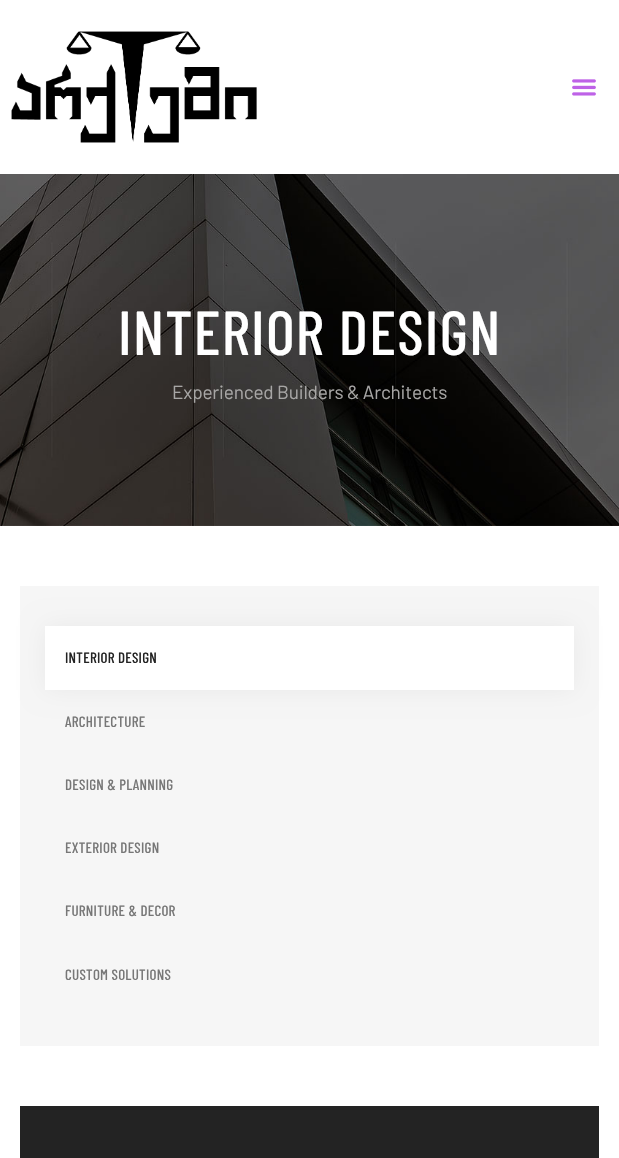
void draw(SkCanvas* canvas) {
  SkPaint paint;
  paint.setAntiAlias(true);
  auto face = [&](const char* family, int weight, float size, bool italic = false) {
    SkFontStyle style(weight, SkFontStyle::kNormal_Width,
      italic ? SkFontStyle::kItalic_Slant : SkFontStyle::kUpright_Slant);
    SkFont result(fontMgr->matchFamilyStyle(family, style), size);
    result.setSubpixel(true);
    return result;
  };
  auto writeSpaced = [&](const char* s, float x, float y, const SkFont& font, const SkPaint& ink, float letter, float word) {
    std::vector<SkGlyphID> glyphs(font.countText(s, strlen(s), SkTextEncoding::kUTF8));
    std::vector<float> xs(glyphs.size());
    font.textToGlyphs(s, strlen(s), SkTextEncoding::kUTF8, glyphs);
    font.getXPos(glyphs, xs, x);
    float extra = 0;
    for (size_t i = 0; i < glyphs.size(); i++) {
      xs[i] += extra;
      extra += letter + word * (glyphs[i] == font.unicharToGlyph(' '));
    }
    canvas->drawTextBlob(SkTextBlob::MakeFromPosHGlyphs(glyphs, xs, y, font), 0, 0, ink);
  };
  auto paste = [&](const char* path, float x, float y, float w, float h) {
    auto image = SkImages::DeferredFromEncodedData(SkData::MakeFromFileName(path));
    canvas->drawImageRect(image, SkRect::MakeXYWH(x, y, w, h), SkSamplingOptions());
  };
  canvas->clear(0xffffffff);
  paste("img/1.png", 11, 31, 246, 112);
  paste("img/2.png", 572, 79, 24, 17);
  paste("img/3.png", 0, 174, 619, 352);
  paint.setColor(0xfff6f6f6);
  canvas->drawRect(SkRect::MakeXYWH(20, 586, 579, 460), paint);
  paint.setColor(0x0d000000);
  paint.setMaskFilter(SkMaskFilter::MakeBlur(kNormal_SkBlurStyle, 12.5f));
  canvas->drawRect(SkRect::MakeXYWH(45, 626, 529, 64), paint);
  paint.setMaskFilter(nullptr);
  paint.setColor(0xffffffff);
  canvas->drawRect(SkRect::MakeXYWH(45, 626, 529, 64), paint);
  paint.setColor(0xff232323);
  canvas->drawRect(SkRect::MakeXYWH(20, 1106, 579, 52), paint);
  auto f0 = face("Barlow Condensed", 500, 62);
  paint.setColor(0xffffffff);
  writeSpaced("INTERIOR DESIGN", 118, 355, f0, paint, 1.25f, 0);
  auto f1 = face("Barlow", 400, 19);
  paint.setColor(0xffa7a6a5);
  writeSpaced("Experienced Builders & Architects", 172, 399, f1, paint, -0.2f, 0);
  auto f2 = face("Barlow Condensed", 500, 15);
  paint.setColor(0xff232323);
  writeSpaced("INTERIOR DESIGN", 65, 663, f2, paint, 0.25f, 0);
  paint.setColor(0xff777777);
  {
    const struct { const char* s; float x, y; } items[] = {
      {"ARCHITECTURE", 65, 727},
      {"DESIGN & PLANNING", 65, 790},
      {"EXTERIOR DESIGN", 65, 853},
      {"FURNITURE & DECOR", 65, 916},
      {"CUSTOM SOLUTIONS", 65, 980},
    };
    for (auto [s, x, y] : items) {
      writeSpaced(s, x, y, f2, paint, 0.25f, 0);
    }
  }
}
